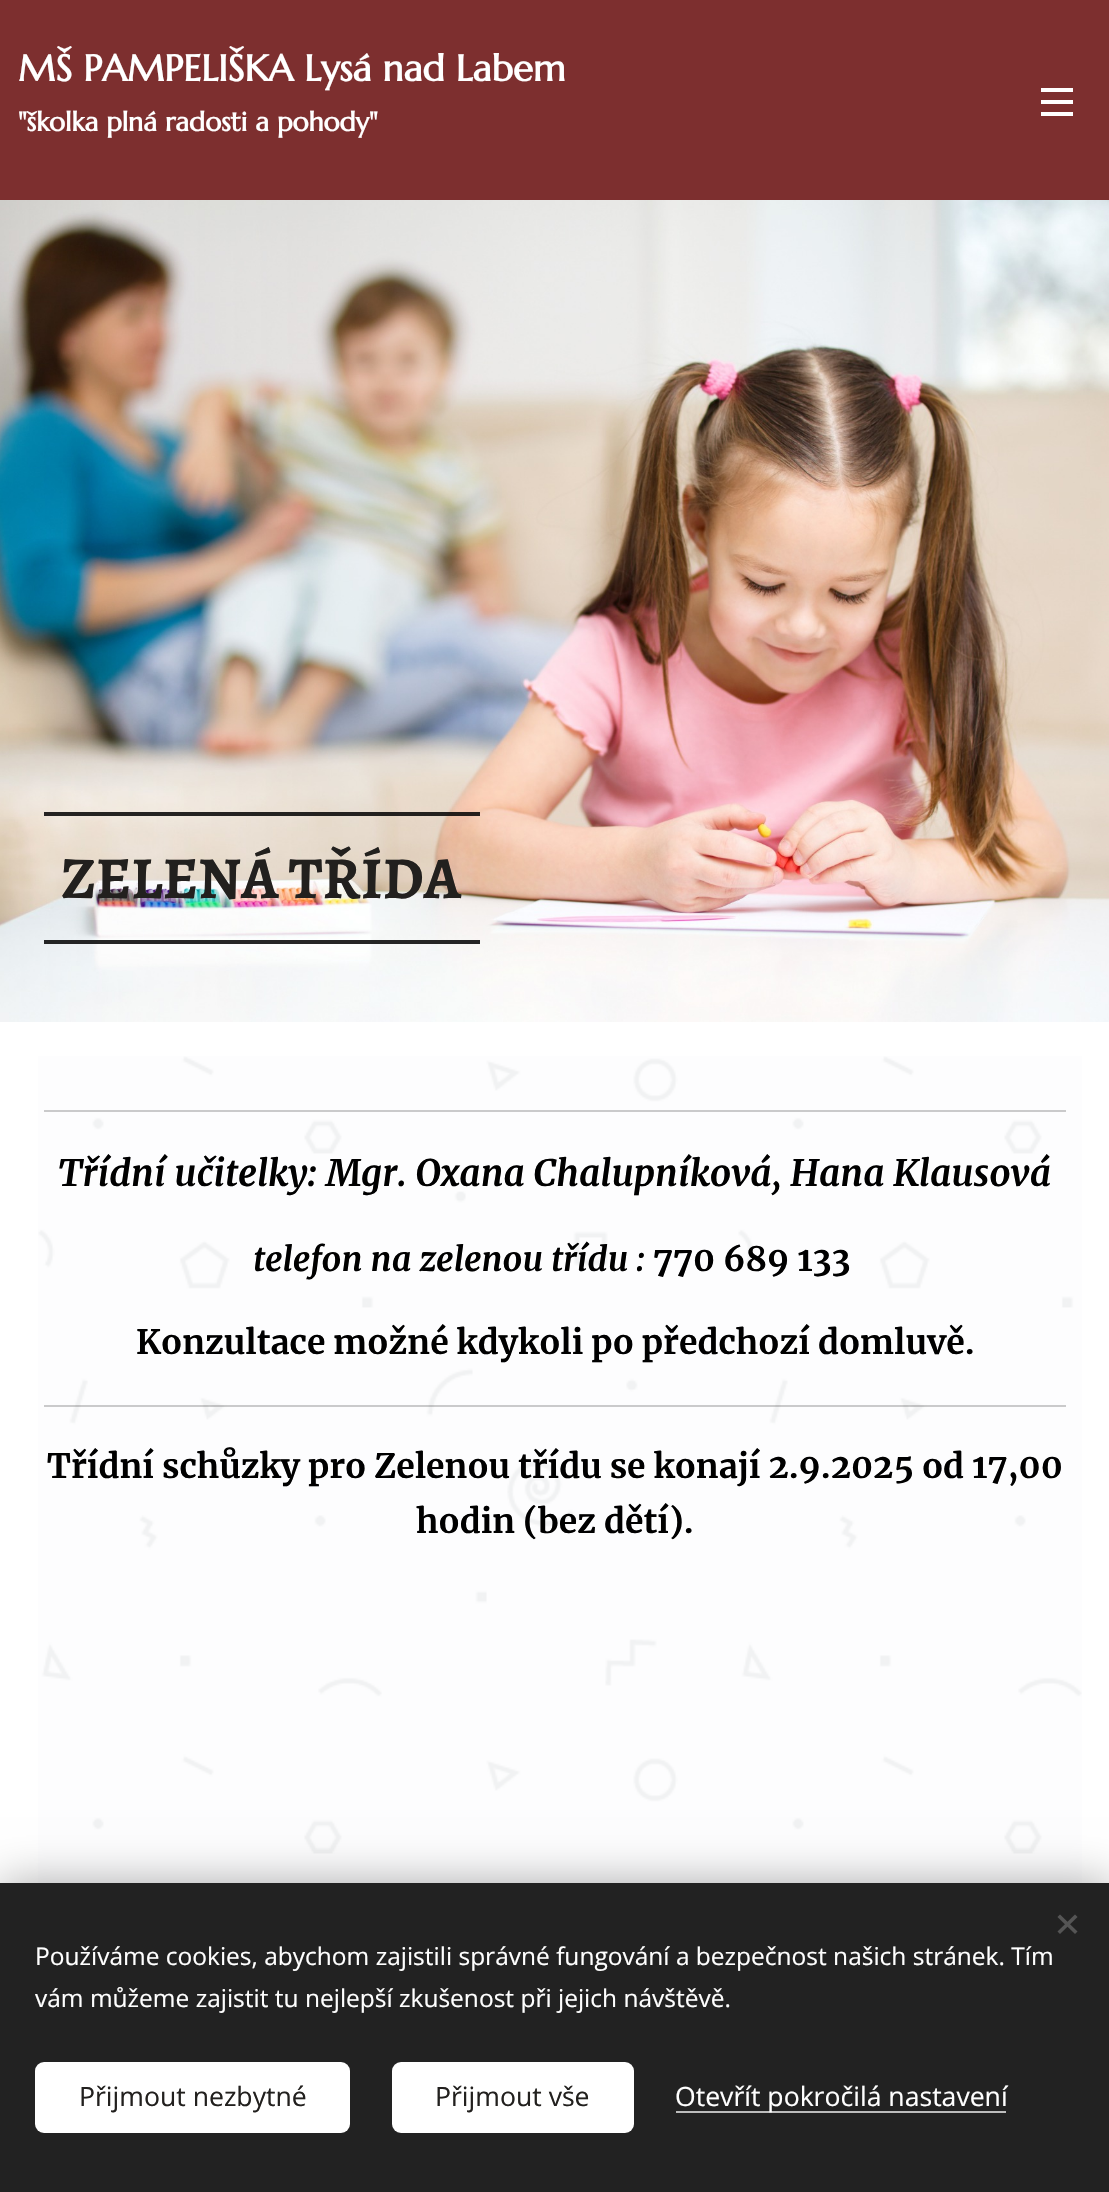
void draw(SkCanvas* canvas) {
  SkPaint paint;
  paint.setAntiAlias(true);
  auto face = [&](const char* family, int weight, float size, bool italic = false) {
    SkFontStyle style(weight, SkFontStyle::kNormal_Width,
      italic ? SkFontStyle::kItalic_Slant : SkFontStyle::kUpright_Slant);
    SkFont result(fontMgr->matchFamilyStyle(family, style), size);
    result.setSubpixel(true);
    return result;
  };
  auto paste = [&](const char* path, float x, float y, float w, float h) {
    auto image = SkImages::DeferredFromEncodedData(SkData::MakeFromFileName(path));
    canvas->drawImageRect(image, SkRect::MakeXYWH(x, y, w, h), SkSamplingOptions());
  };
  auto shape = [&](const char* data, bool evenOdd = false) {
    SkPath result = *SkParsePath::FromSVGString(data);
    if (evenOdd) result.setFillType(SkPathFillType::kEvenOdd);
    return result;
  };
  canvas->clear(0xffffffff);
  {
    const struct { float x, y, w, h; SkColor color; } items[] = {
      {0, 0, 1109, 200, 0xff7d2f2f},
      {1041, 100, 32, 4, 0xffffffff},
      {1041, 88, 32, 4, 0xffffffff},
      {1041, 112, 32, 4, 0xffffffff},
    };
    for (auto [x, y, w, h, color] : items) {
      paint.setColor(color);
      canvas->drawRect(SkRect::MakeXYWH(x, y, w, h), paint);
    }
  }
  paste("img/1.png", 0, 200, 1109, 822);
  paint.setColor(0xd9000000);
  canvas->drawRect(SkRect::MakeXYWH(44, 812, 436, 4), paint);
  canvas->drawRect(SkRect::MakeXYWH(44, 940, 436, 4), paint);
  paste("img/2.png", 38, 1056, 1044, 827);
  paint.setColor(0xffcacacb);
  canvas->drawRect(SkRect::MakeXYWH(44, 1110, 1022, 2), paint);
  paint.setColor(0x33000000);
  canvas->drawRect(SkRect::MakeXYWH(44, 1405, 1022, 2), paint);
  paint.setColor(0x54000000);
  paint.setMaskFilter(SkMaskFilter::MakeBlur(kNormal_SkBlurStyle, 22));
  canvas->drawRect(SkRect::MakeXYWH(0, 1883, 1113, 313), paint);
  paint.setMaskFilter(nullptr);
  paint.setColor(0xff222222);
  canvas->drawRect(SkRect::MakeXYWH(0, 1883, 1109, 309), paint);
  paint.setColor(0xff555555);
  canvas->drawPath(shape("M1057.5 1931.5L1075 1914.5L1077.5 1917L1060 1934Z"), paint);
  canvas->drawPath(shape("M1060 1914.5L1077.5 1931.5L1075 1934L1057.5 1917Z"), paint);
  paint.setColor(0xffffffff);
  canvas->drawRoundRect(SkRect::MakeXYWH(35, 2062, 315, 71), 9, 9, paint);
  canvas->drawRoundRect(SkRect::MakeXYWH(392, 2062, 242, 71), 9, 9, paint);
  paint.setColor(0xffbdbdbd);
  canvas->drawRect(SkRect::MakeXYWH(676, 2111, 330, 2), paint);
  auto f0 = face("Marcellus", 700, 36.75f);
  paint.setColor(0xffffffff);
  canvas->drawString("MŠ PAMPELIŠKA Lysá nad Labem", 18, 81, f0, paint);
  auto f1 = face("Marcellus", 700, 26.6f);
  canvas->drawString("\"školka plná radosti a pohody\"", 18, 131, f1, paint);
  auto f2 = face("Alegreya", 700, 59.5f);
  paint.setColor(0xff22201e);
  canvas->drawString("ZELENÁ TŘÍDA", 61, 898, f2, paint);
  auto f3 = face("Merriweather", 700, 36.4f, true);
  paint.setColor(0xff000000);
  canvas->drawString("Třídní učitelky: Mgr. Oxana Chalupníková, Hana Klausová", 58, 1186, f3, paint);
  auto f4 = face("Merriweather", 700, 33.6f, true);
  canvas->drawString("telefon na zelenou třídu :", 253, 1271, f4, paint);
  auto f5 = face("Merriweather", 700, 33.6f);
  {
    const struct { const char* s; float x, y; } items[] = {
      {"770 689 133", 653, 1271},
      {"Konzultace možné kdykoli po předchozí domluvě.", 136, 1354},
      {"Třídní schůzky pro Zelenou třídu se konají 2.9.2025 od 17,00", 47, 1478},
      {"hodin (bez dětí).", 416, 1533},
    };
    for (auto [s, x, y] : items) {
      canvas->drawString(s, x, y, f5, paint);
    }
  }
  auto f6 = face("Open Sans", 400, 24.5f);
  paint.setColor(0xffffffff);
  canvas->drawString("Používáme cookies, abychom zajistili správné fungování a bezpečnost našich stránek. Tím", 35, 1965, f6, paint);
  canvas->drawString("vám můžeme zajistit tu nejlepší zkušenost při jejich návštěvě.", 35, 2007, f6, paint);
  auto f7 = face("Open Sans", 400, 26.6f);
  paint.setColor(0xff22201e);
  canvas->drawString("Přijmout nezbytné", 79, 2106, f7, paint);
  canvas->drawString("Přijmout vše", 435, 2106, f7, paint);
  paint.setColor(0xffffffff);
  canvas->drawString("Otevřít pokročilá nastavení", 675, 2106, f7, paint);
}
